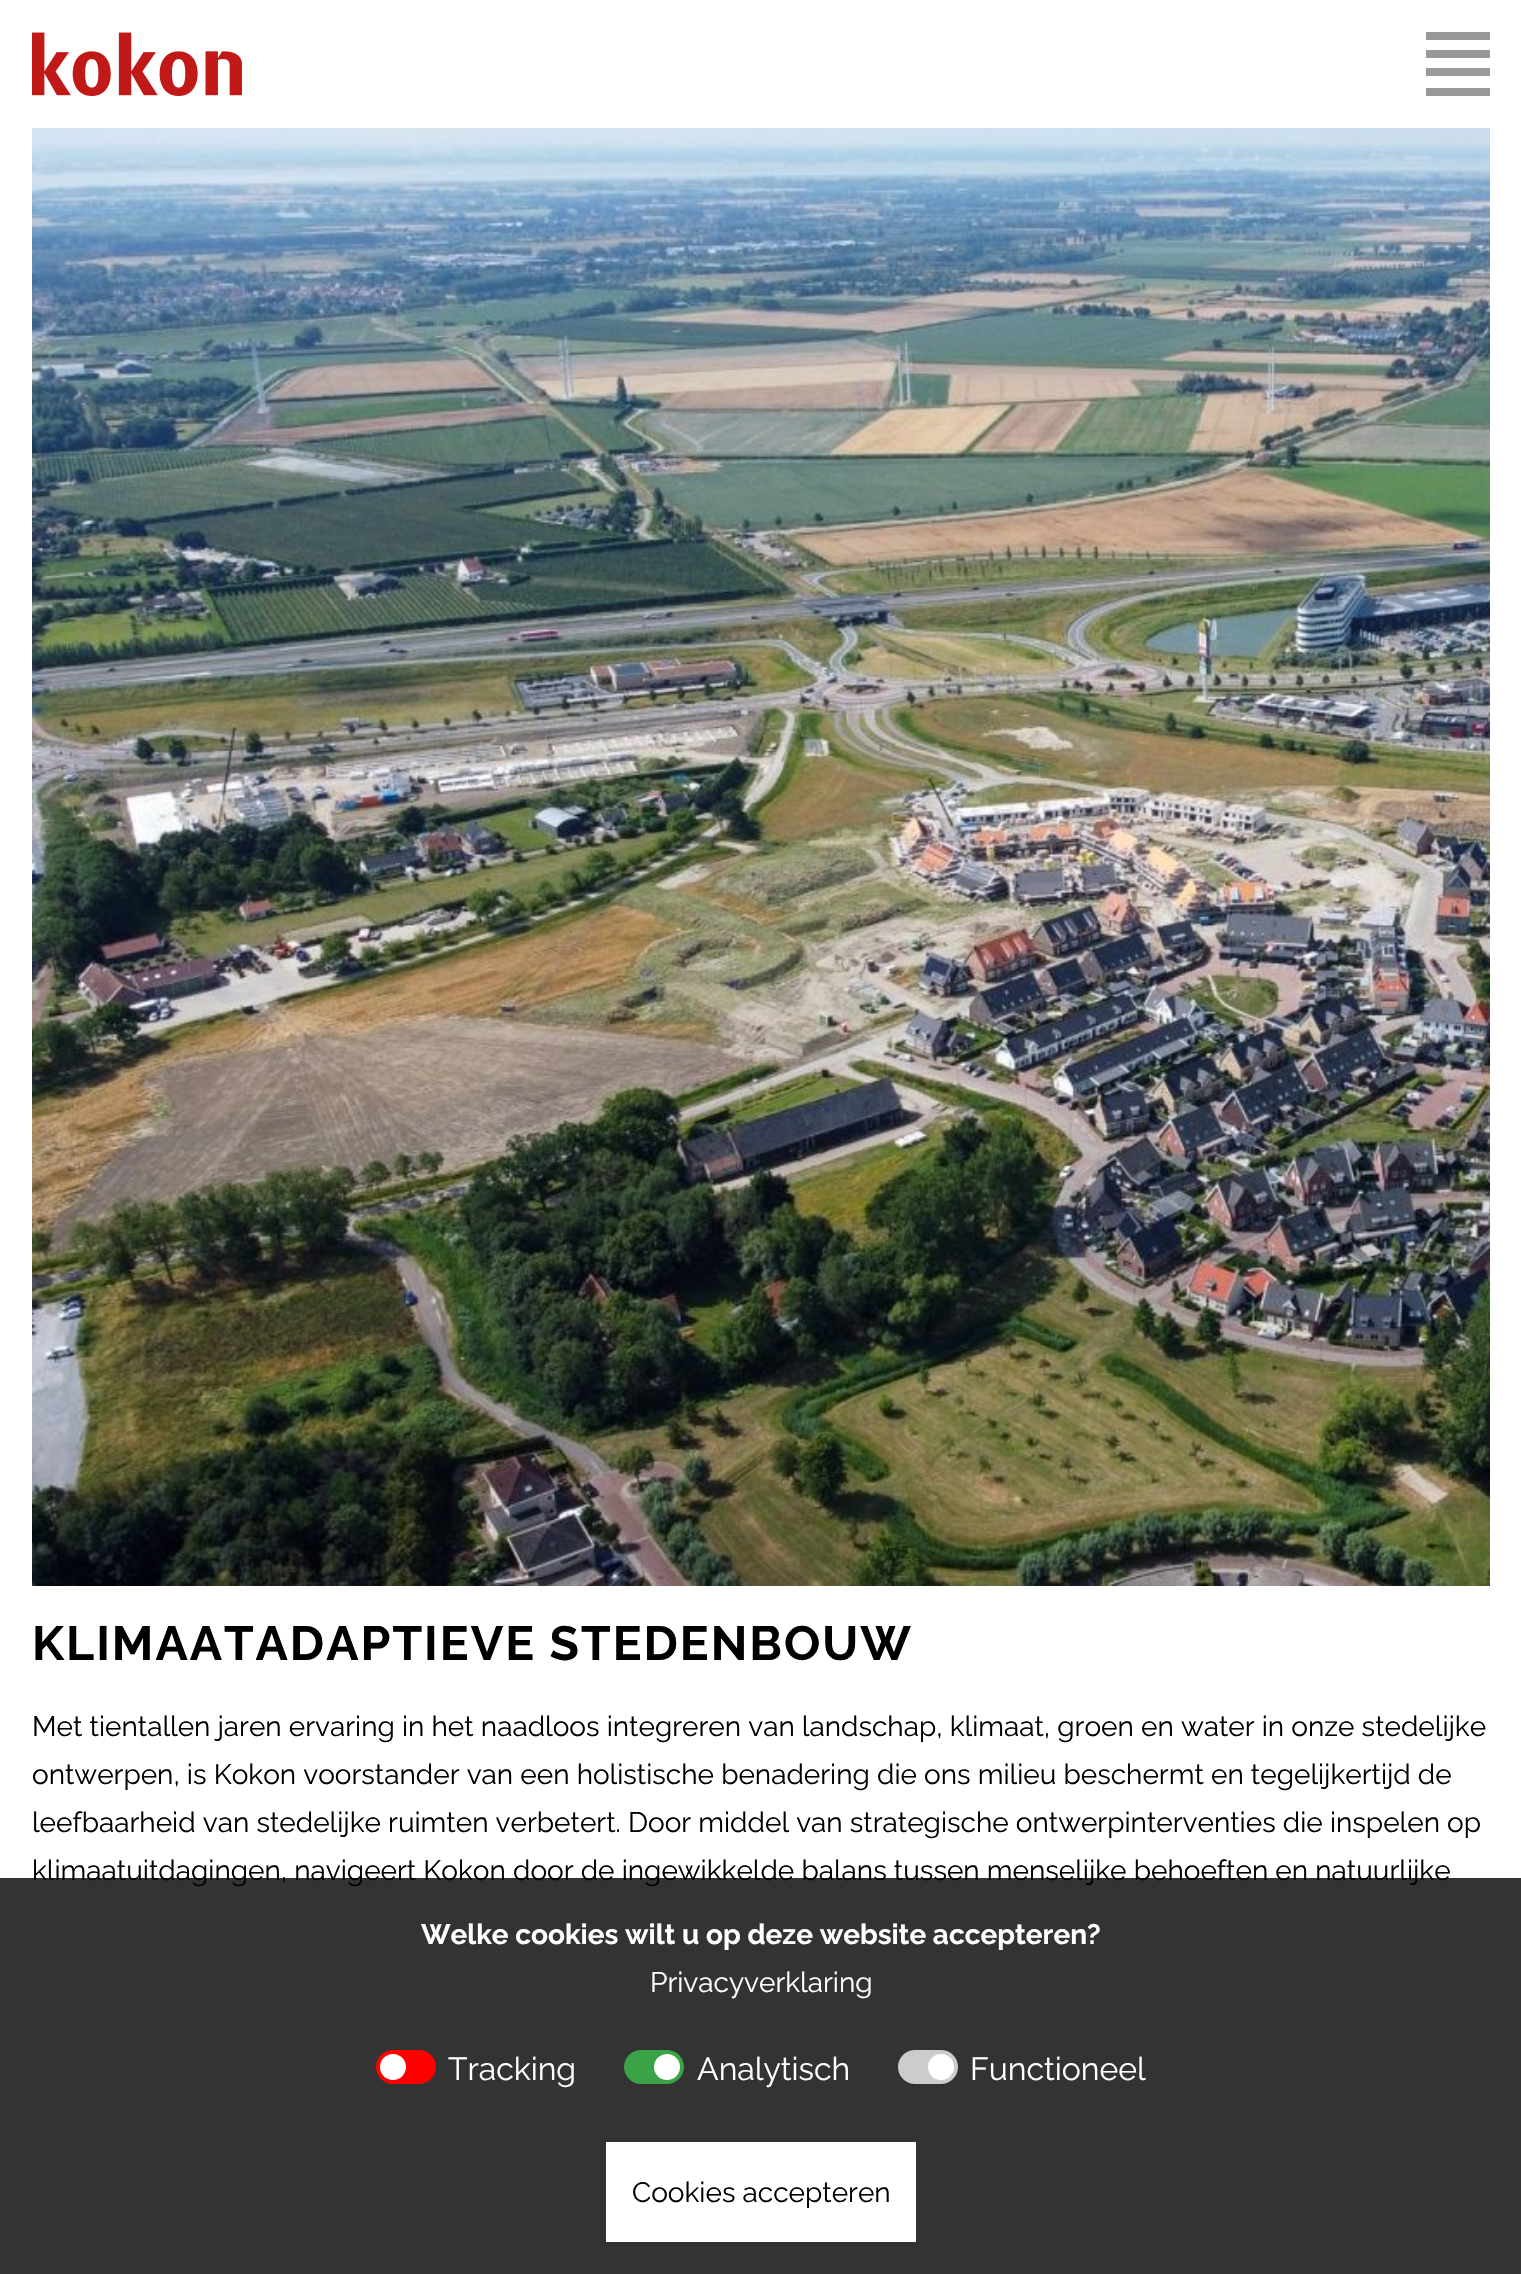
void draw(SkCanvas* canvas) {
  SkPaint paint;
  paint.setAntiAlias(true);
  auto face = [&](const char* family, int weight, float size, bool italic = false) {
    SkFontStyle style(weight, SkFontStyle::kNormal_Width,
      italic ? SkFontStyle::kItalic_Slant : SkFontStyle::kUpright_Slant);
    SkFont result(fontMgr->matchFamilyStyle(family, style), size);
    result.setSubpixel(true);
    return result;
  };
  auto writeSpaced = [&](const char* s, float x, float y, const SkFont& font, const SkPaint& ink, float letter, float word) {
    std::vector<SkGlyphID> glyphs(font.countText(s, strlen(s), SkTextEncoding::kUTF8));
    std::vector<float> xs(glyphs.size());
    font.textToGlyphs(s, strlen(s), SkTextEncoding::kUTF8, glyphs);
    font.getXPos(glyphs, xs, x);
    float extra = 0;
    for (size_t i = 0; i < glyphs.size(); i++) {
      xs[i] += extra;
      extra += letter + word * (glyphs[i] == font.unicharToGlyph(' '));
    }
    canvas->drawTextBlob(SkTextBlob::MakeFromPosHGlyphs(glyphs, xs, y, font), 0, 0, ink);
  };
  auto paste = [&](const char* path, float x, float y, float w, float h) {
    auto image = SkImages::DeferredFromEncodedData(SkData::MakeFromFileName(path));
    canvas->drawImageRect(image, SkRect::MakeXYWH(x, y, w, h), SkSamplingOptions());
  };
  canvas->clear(0xffffffff);
  paste("img/1.png", 32, 32, 210, 64);
  {
    const struct { float x, y, w, h; SkColor color; } items[] = {
      {1426, 32, 64, 8, 0xff999999},
      {1426, 50, 64, 8, 0xff999999},
      {1426, 68, 64, 8, 0xff999999},
      {1426, 88, 64, 8, 0xff999999},
    };
    for (auto [x, y, w, h, color] : items) {
      paint.setColor(color);
      canvas->drawRect(SkRect::MakeXYWH(x, y, w, h), paint);
    }
  }
  paste("img/2.png", 32, 128, 1458, 1458);
  auto f0 = face("Raleway", 700, 48);
  paint.setColor(0xff000000);
  writeSpaced("KLIMAATADAPTIEVE STEDENBOUW", 32, 1660, f0, paint, 2, 0);
  auto f1 = face("Raleway", 400, 28);
  {
    const struct { const char* s; float x, y; } items[] = {
      {"Met tientallen jaren ervaring in het naadloos integreren van landschap, klimaat, groen en water in onze stedelijke", 32, 1736},
      {"ontwerpen, is Kokon voorstander van een holistische benadering die ons milieu beschermt en tegelijkertijd de", 32, 1784},
      {"leefbaarheid van stedelijke ruimten verbetert. Door middel van strategische ontwerpinterventies die inspelen op", 32, 1832},
      {"klimaatuitdagingen, navigeert Kokon door de ingewikkelde balans tussen menselijke behoeften en natuurlijke", 32, 1880},
    };
    for (auto [s, x, y] : items) {
      canvas->drawString(s, x, y, f1, paint);
    }
  }
  paint.setColor(0xcc000000);
  canvas->drawRect(SkRect::MakeXYWH(0, 1878, 1521, 396), paint);
  auto f2 = face("Raleway", 700, 28);
  paint.setColor(0xffffffff);
  canvas->drawString("Welke cookies wilt u op deze website accepteren?", 421, 1944, f2, paint);
  canvas->drawString("Privacyverklaring", 650, 1992, f1, paint);
  paint.setColor(0xffff0000);
  canvas->drawRoundRect(SkRect::MakeXYWH(376, 2050, 60, 34), 17, 17, paint);
  paint.setColor(0xffffffff);
  canvas->drawCircle(393, 2067, 13, paint);
  auto f3 = face("Raleway", 400, 32);
  canvas->drawString("Tracking", 448, 2080, f3, paint);
  paint.setColor(0xff39a346);
  canvas->drawRoundRect(SkRect::MakeXYWH(624, 2050, 60, 34), 17, 17, paint);
  paint.setColor(0xffffffff);
  canvas->drawCircle(667, 2067, 13, paint);
  canvas->drawString("Analytisch", 697, 2080, f3, paint);
  paint.setColor(0xffcccccc);
  canvas->drawRoundRect(SkRect::MakeXYWH(898, 2050, 60, 34), 17, 17, paint);
  paint.setColor(0xffffffff);
  canvas->drawCircle(941, 2067, 13, paint);
  canvas->drawString("Functioneel", 970, 2080, f3, paint);
  canvas->drawRect(SkRect::MakeXYWH(606, 2142, 310, 100), paint);
  paint.setColor(0xff000000);
  canvas->drawString("Cookies accepteren", 632, 2202, f1, paint);
}
